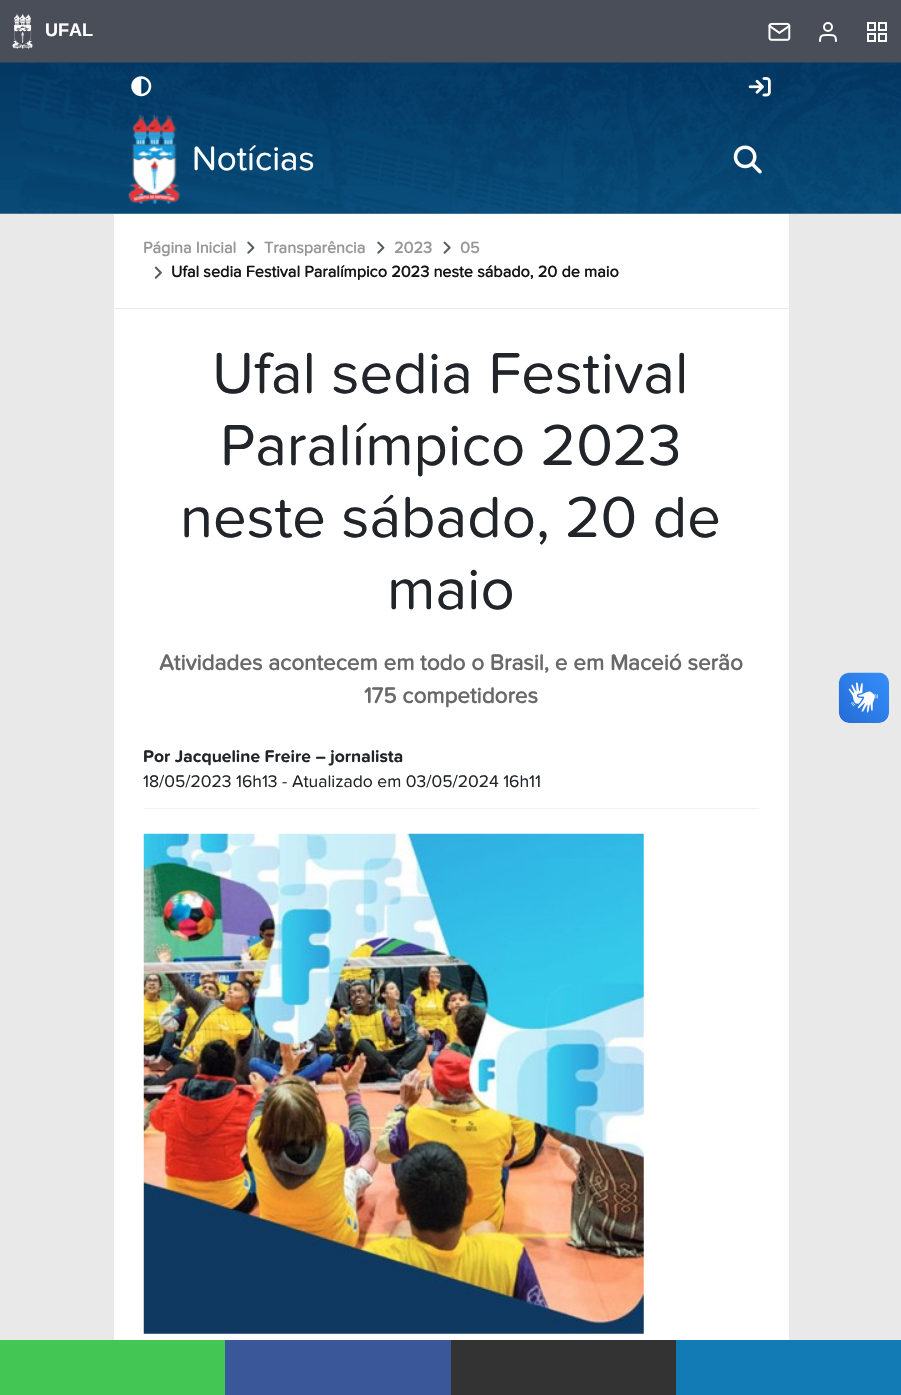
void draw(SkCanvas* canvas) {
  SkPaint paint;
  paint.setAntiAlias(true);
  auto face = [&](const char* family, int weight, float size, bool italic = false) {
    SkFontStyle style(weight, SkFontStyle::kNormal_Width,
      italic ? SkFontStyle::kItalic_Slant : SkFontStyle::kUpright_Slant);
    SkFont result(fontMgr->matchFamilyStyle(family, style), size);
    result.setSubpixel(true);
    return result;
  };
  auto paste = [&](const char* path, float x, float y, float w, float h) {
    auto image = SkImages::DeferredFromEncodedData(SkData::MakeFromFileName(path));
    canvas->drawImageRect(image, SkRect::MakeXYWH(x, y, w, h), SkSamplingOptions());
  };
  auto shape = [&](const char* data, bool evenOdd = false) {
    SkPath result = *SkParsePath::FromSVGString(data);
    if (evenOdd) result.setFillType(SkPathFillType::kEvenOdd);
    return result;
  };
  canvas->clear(0xffe9e9e9);
  paint.setColor(0xff4a4e59);
  canvas->drawRect(SkRect::MakeXYWH(0, 0, 901, 63), paint);
  paste("img/1.png", 12, 13, 21, 36);
  paste("img/2.png", 768, 22, 23, 19);
  paint.setStroke(true);
  paint.setStrokeWidth(2);
  paint.setStrokeCap(SkPaint::kRound_Cap);
  paint.setStrokeJoin(SkPaint::kRound_Join);
  paint.setColor(0xffffffff);
  canvas->drawPath(shape("M836 41C836 34.5 833.5 35 828 35C822.5 35 820 34.5 820 41"), paint);
  paint.setStrokeCap(SkPaint::kButt_Cap);
  paint.setStrokeJoin(SkPaint::kMiter_Join);
  canvas->drawCircle(828, 27, 4, paint);
  canvas->drawRect(SkRect::MakeXYWH(868, 23, 7, 7), paint);
  canvas->drawRect(SkRect::MakeXYWH(879, 23, 7, 7), paint);
  canvas->drawRect(SkRect::MakeXYWH(879, 34, 7, 7), paint);
  canvas->drawRect(SkRect::MakeXYWH(868, 34, 7, 7), paint);
  paste("img/3.png", 0, 62, 901, 152);
  paste("img/4.png", 131, 76, 21, 21);
  paste("img/5.png", 748, 77, 23, 20);
  paste("img/6.png", 128, 115, 52, 89);
  paste("img/7.png", 733, 145, 29, 29);
  paint.setStroke(false);
  canvas->drawRect(SkRect::MakeXYWH(114, 214, 675, 1126), paint);
  paint.setColor(0xffe9e9e9);
  canvas->drawRect(SkRect::MakeXYWH(114, 308, 675, 1), paint);
  paste("img/8.png", 247, 241, 8, 13);
  paste("img/8.png", 377, 241, 8, 13);
  paste("img/9.png", 443, 241, 8, 13);
  paste("img/10.png", 154, 266, 8, 13);
  {
    const struct { float x, y, w, h; SkColor color; } items[] = {
      {144, 808, 615, 1, 0xfff2f2f2},
      {0, 1340, 225, 55, 0xff43c654},
      {225, 1340, 226, 55, 0xff3a5799},
      {451, 1340, 225, 55, 0xff333333},
      {676, 1340, 225, 55, 0xff127bb5},
    };
    for (auto [x, y, w, h, color] : items) {
      paint.setColor(color);
      canvas->drawRect(SkRect::MakeXYWH(x, y, w, h), paint);
    }
  }
  paste("img/11.png", 143, 833, 501, 501);
  paste("img/12.png", 838, 672, 51, 51);
  paste("img/13.png", 839, 673, 50, 50);
  auto f0 = face("Liberation Sans", 700, 18);
  paint.setColor(0xffffffff);
  canvas->drawString("UFAL", 45, 36, f0, paint);
  auto f1 = face("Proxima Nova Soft", 400, 35);
  canvas->drawString("Notícias", 192, 170, f1, paint);
  auto f2 = face("Proxima Nova Soft", 700, 16.25f);
  paint.setColor(0xff989898);
  {
    const struct { const char* s; float x, y; } items[] = {
      {"Página Inicial", 143, 253},
      {"Transparência", 264, 253},
      {"2023", 394, 253},
      {"05", 460, 253},
    };
    for (auto [s, x, y] : items) {
      canvas->drawString(s, x, y, f2, paint);
    }
  }
  paint.setColor(0xff151515);
  canvas->drawString("Ufal sedia Festival Paralímpico 2023 neste sábado, 20 de maio", 171, 277, f2, paint);
  auto f3 = face("Proxima Nova Soft", 400, 60);
  paint.setColor(0xff212529);
  {
    const struct { const char* s; float x, y; } items[] = {
      {"Ufal sedia Festival", 212, 393},
      {"Paralímpico 2023", 220, 465},
      {"neste sábado, 20 de", 180, 537},
      {"maio", 387, 609},
    };
    for (auto [s, x, y] : items) {
      canvas->drawString(s, x, y, f3, paint);
    }
  }
  auto f4 = face("Proxima Nova Soft", 700, 22.5f);
  paint.setColor(0xff696969);
  canvas->drawString("Atividades acontecem em todo o Brasil, e em Maceió serão", 159, 670, f4, paint);
  canvas->drawString("175 competidores", 364, 703, f4, paint);
  auto f5 = face("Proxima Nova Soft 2", 700, 17.5f);
  paint.setColor(0xff212529);
  canvas->drawString("Por Jacqueline Freire – jornalista", 143, 762, f5, paint);
  auto f6 = face("Proxima Nova Soft", 400, 17.5f);
  canvas->drawString("18/05/2023 16h13 - Atualizado em 03/05/2024 16h11", 143, 787, f6, paint);
}
